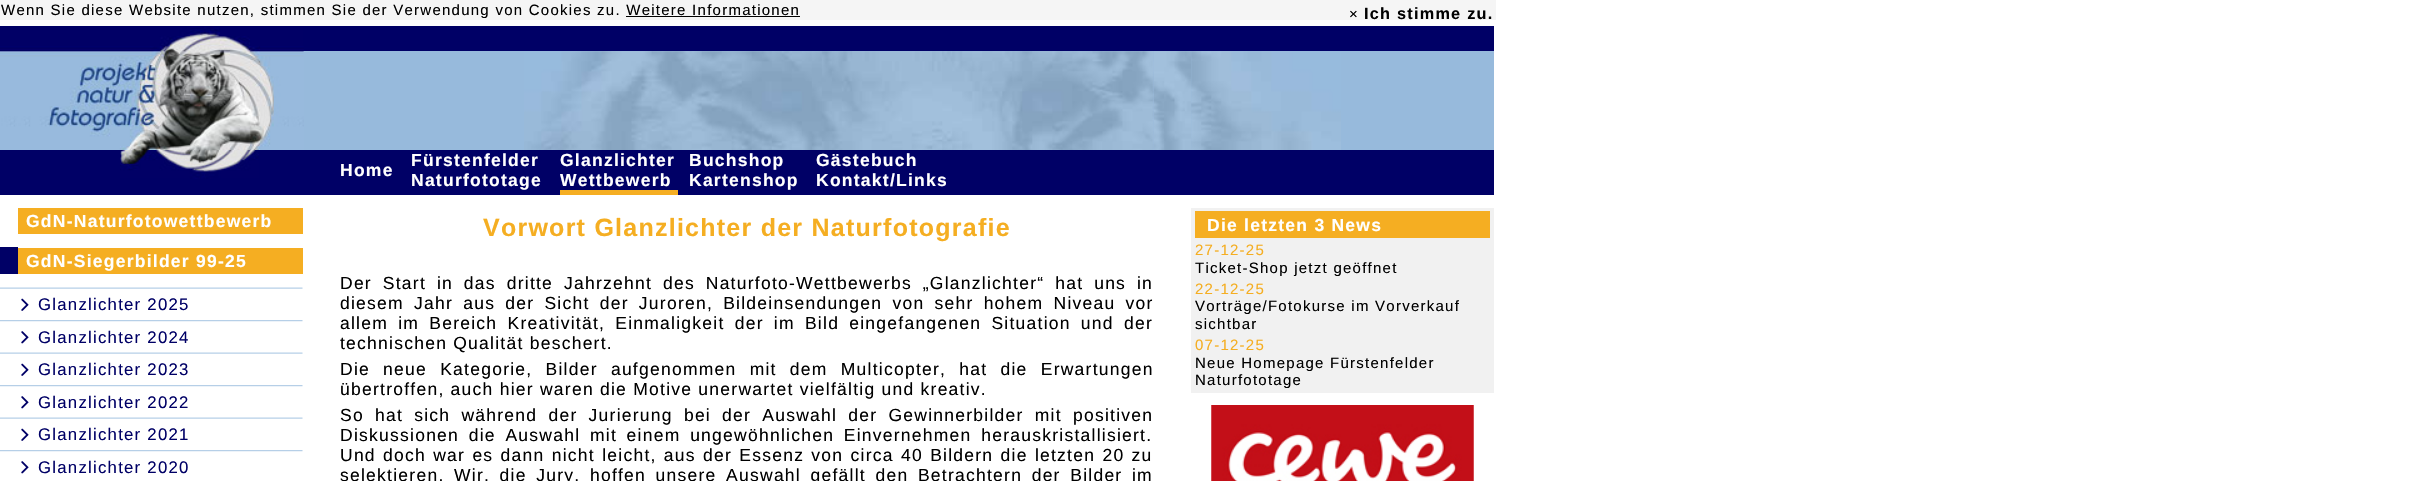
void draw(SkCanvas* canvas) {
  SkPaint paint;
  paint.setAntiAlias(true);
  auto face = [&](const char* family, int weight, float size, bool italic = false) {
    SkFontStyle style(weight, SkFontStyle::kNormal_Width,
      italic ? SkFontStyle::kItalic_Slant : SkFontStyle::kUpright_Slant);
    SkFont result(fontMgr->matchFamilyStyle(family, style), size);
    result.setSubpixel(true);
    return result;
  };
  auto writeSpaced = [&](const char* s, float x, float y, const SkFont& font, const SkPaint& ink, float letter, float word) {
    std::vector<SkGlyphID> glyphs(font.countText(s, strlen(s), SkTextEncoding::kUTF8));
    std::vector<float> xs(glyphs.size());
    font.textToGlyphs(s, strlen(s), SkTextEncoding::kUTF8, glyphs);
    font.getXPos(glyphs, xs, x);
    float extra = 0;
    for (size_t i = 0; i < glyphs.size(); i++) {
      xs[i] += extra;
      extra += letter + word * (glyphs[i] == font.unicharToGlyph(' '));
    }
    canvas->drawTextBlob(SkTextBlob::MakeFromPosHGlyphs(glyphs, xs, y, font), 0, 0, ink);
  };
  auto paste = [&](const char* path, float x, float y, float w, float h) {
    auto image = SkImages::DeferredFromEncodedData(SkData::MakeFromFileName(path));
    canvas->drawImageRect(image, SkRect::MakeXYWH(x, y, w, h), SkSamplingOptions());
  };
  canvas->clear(0xffffffff);
  {
    const struct { float x, y, w, h; SkColor color; } items[] = {
      {0, 0, 1496, 20, 0xfff5f5f5},
      {626, 16, 174, 1, 0xff000000},
      {0, 26, 1494, 25, 0xff000066},
      {303, 51, 1191, 99, 0xff97badc},
    };
    for (auto [x, y, w, h, color] : items) {
      paint.setColor(color);
      canvas->drawRect(SkRect::MakeXYWH(x, y, w, h), paint);
    }
  }
  paste("img/1.png", 0, 26, 304, 124);
  paint.setColor(0xff7b95c5);
  canvas->drawRect(SkRect::MakeXYWH(303, 51, 1, 1), paint);
  paste("img/2.png", 524, 51, 630, 99);
  paste("img/3.png", 1154, 51, 38, 99);
  paste("img/4.png", 1191, 51, 150, 99);
  paint.setColor(0xff000066);
  canvas->drawRect(SkRect::MakeXYWH(0, 150, 1494, 45), paint);
  paste("img/5.png", 120, 150, 139, 29);
  {
    const struct { float x, y, w, h; SkColor color; } items[] = {
      {560, 190, 118, 5, 0xfff5ae22},
      {18, 208, 285, 26, 0xfff5ae22},
      {0, 247, 18, 27, 0xff000066},
      {18, 248, 285, 26, 0xfff5ae22},
    };
    for (auto [x, y, w, h, color] : items) {
      paint.setColor(color);
      canvas->drawRect(SkRect::MakeXYWH(x, y, w, h), paint);
    }
  }
  paste("img/6.png", 0, 287, 303, 2);
  paste("img/7.png", 21, 298, 8, 13);
  paste("img/8.png", 0, 320, 303, 2);
  paste("img/9.png", 21, 331, 8, 13);
  paste("img/6.png", 0, 352, 303, 2);
  paste("img/7.png", 21, 363, 8, 13);
  paste("img/8.png", 0, 385, 303, 2);
  paste("img/9.png", 21, 396, 8, 13);
  paste("img/6.png", 0, 417, 303, 2);
  paste("img/7.png", 21, 428, 8, 13);
  paste("img/8.png", 0, 450, 303, 2);
  paste("img/9.png", 21, 461, 8, 13);
  paint.setColor(0xfff1f1f1);
  canvas->drawRect(SkRect::MakeXYWH(1191, 208, 303, 185), paint);
  paint.setColor(0xfff5ae22);
  canvas->drawRect(SkRect::MakeXYWH(1195, 211, 295, 27), paint);
  paste("img/10.png", 1211, 405, 263, 76);
  auto f0 = face("Liberation Sans", 400, 15);
  paint.setColor(0xff000000);
  writeSpaced("Wenn Sie diese Website nutzen, stimmen Sie der Verwendung von Cookies zu. Weitere Informationen", 1, 15, f0, paint, 1.25f, 0);
  writeSpaced("×", 1349, 19, f0, paint, 1.25f, 0);
  auto f1 = face("Liberation Sans", 700, 16.25f);
  writeSpaced("Ich stimme zu.", 1364, 19, f1, paint, 1.25f, 0);
  auto f2 = face("Liberation Sans", 700, 17.5f);
  paint.setColor(0xffffffff);
  {
    const struct { const char* s; float x, y; } items[] = {
      {"Home", 340, 176},
      {"Fürstenfelder", 411, 166},
      {"Naturfototage", 411, 186},
      {"Glanzlichter", 560, 166},
      {"Wettbewerb", 560, 186},
      {"Buchshop", 689, 166},
      {"Kartenshop", 689, 186},
      {"Gästebuch", 816, 166},
      {"Kontakt/Links", 816, 186},
      {"GdN-Naturfotowettbewerb", 26, 227},
      {"GdN-Siegerbilder 99-25", 26, 267},
    };
    for (auto [s, x, y] : items) {
      writeSpaced(s, x, y, f2, paint, 1.25f, 0);
    }
  }
  auto f3 = face("Liberation Sans", 400, 16.75f);
  paint.setColor(0xff000066);
  {
    const struct { const char* s; float x, y; } items[] = {
      {"Glanzlichter 2025", 38, 310},
      {"Glanzlichter 2024", 38, 343},
      {"Glanzlichter 2023", 38, 375},
      {"Glanzlichter 2022", 38, 408},
      {"Glanzlichter 2021", 38, 440},
      {"Glanzlichter 2020", 38, 473},
    };
    for (auto [s, x, y] : items) {
      writeSpaced(s, x, y, f3, paint, 1.25f, 0);
    }
  }
  auto f4 = face("Liberation Sans", 700, 25);
  paint.setColor(0xfff5ae22);
  writeSpaced("Vorwort Glanzlichter der Naturfotografie", 483, 236, f4, paint, 1.25f, 0);
  auto f5 = face("Liberation Sans", 400, 17.5f);
  paint.setColor(0xff000000);
  writeSpaced("Der Start in das dritte Jahrzehnt des Naturfoto-Wettbewerbs „Glanzlichter“ hat uns in", 340, 289, f5, paint, 1.25f, 4.75f);
  writeSpaced("diesem Jahr aus der Sicht der Juroren, Bildeinsendungen von sehr hohem Niveau vor", 340, 309, f5, paint, 1.25f, 4);
  writeSpaced("allem im Bereich Kreativität, Einmaligkeit der im Bild eingefangenen Situation und der", 340, 329, f5, paint, 1.25f, 4);
  writeSpaced("technischen Qualität beschert.", 340, 349, f5, paint, 1.25f, 0);
  writeSpaced("Die neue Kategorie, Bilder aufgenommen mit dem Multicopter, hat die Erwartungen", 340, 375, f5, paint, 1.25f, 7);
  writeSpaced("übertroffen, auch hier waren die Motive unerwartet vielfältig und kreativ.", 340, 395, f5, paint, 1.25f, 0);
  writeSpaced("So hat sich während der Jurierung bei der Auswahl der Gewinnerbilder mit positiven", 340, 421, f5, paint, 1.25f, 5);
  writeSpaced("Diskussionen die Auswahl mit einem ungewöhnlichen Einvernehmen herauskristallisiert.", 340, 441, f5, paint, 1.25f, 3.5f);
  writeSpaced("Und doch war es dann nicht leicht, aus der Essenz von circa 40 Bildern die letzten 20 zu", 340, 461, f5, paint, 1.25f, 1.1f);
  writeSpaced("selektieren. Wir, die Jury, hoffen unsere Auswahl gefällt den Betrachtern der Bilder im", 340, 481, f5, paint, 1.25f, 3.4f);
  paint.setColor(0xffffffff);
  writeSpaced("Die letzten 3 News", 1207, 231, f2, paint, 1.25f, 0);
  paint.setColor(0xfff5ae22);
  writeSpaced("27-12-25", 1195, 255, f0, paint, 1.25f, 0);
  paint.setColor(0xff000000);
  writeSpaced("Ticket-Shop jetzt geöffnet", 1195, 273, f0, paint, 1.25f, 0);
  paint.setColor(0xfff5ae22);
  writeSpaced("22-12-25", 1195, 294, f0, paint, 1.25f, 0);
  paint.setColor(0xff000000);
  writeSpaced("Vorträge/Fotokurse im Vorverkauf", 1195, 311, f0, paint, 1.25f, 0);
  writeSpaced("sichtbar", 1195, 329, f0, paint, 1.25f, 0);
  paint.setColor(0xfff5ae22);
  writeSpaced("07-12-25", 1195, 350, f0, paint, 1.25f, 0);
  paint.setColor(0xff000000);
  writeSpaced("Neue Homepage Fürstenfelder", 1195, 368, f0, paint, 1.25f, 0);
  writeSpaced("Naturfototage", 1195, 385, f0, paint, 1.25f, 0);
}
